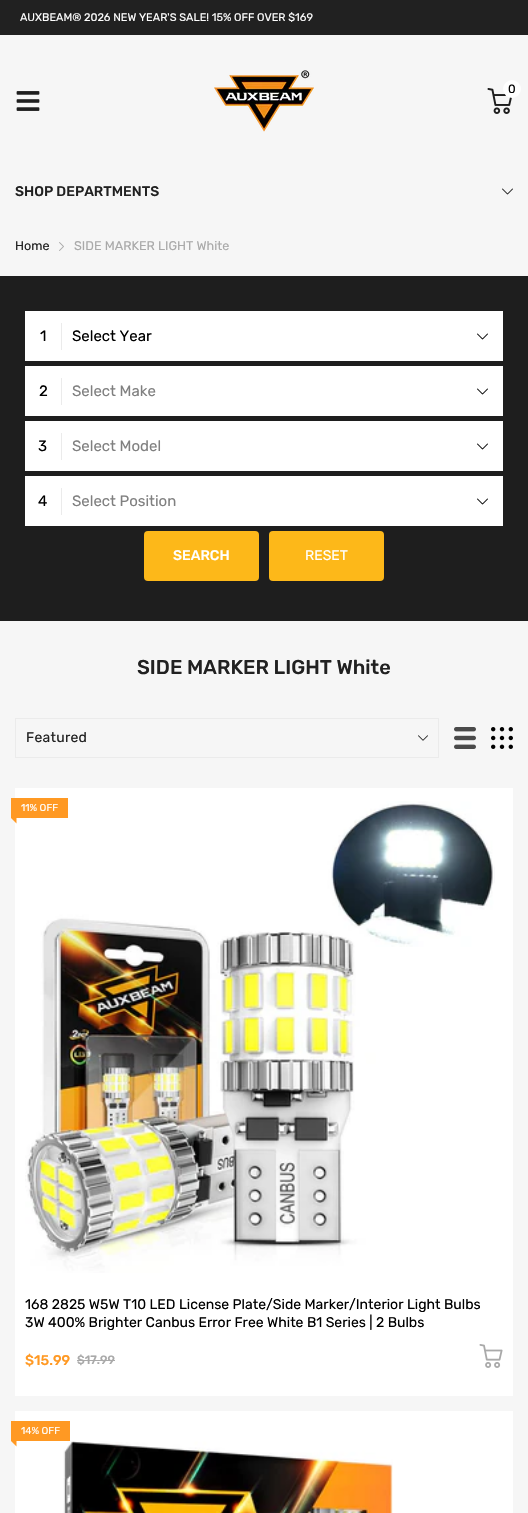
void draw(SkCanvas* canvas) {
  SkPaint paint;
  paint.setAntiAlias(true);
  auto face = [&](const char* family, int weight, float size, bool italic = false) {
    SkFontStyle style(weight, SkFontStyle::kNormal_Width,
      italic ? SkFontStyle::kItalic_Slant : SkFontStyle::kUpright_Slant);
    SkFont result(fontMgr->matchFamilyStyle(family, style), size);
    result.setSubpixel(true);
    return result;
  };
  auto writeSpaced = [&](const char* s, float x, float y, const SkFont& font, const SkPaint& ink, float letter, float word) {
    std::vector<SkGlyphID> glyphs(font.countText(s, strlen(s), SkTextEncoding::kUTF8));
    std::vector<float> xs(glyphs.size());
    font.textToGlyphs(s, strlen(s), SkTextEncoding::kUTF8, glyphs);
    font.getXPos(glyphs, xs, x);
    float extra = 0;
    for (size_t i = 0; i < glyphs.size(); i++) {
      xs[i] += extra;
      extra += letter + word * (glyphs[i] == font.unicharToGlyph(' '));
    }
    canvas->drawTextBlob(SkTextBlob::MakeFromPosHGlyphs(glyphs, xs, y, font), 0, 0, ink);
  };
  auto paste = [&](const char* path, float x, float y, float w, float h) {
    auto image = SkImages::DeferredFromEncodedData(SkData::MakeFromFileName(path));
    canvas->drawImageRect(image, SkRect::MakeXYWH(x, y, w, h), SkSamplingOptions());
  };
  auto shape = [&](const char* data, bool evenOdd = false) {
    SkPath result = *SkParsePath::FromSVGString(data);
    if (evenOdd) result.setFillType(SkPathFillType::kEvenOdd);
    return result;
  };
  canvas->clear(0xfff6f6f6);
  paint.setColor(0xff212121);
  canvas->drawRect(SkRect::MakeXYWH(0, 0, 528, 35), paint);
  paste("img/1.png", 214, 70, 100, 62);
  paste("img/2.png", 487, 88, 25, 26);
  paint.setColor(0xffffffff);
  canvas->drawCircle(512, 89, 9, paint);
  paste("img/3.png", 16, 91, 24, 20);
  paste("img/4.png", 502, 188, 11, 7);
  paste("img/5.png", 59, 242, 5, 9);
  {
    const struct { float x, y, w, h; SkColor color; } items[] = {
      {0, 276, 528, 345, 0xff1e1e1e},
      {25, 311, 478, 50, 0xffffffff},
      {61, 323, 1, 27, 0xffebebeb},
    };
    for (auto [x, y, w, h, color] : items) {
      paint.setColor(color);
      canvas->drawRect(SkRect::MakeXYWH(x, y, w, h), paint);
    }
  }
  paste("img/6.png", 477, 333, 11, 7);
  paint.setColor(0xffffffff);
  canvas->drawRect(SkRect::MakeXYWH(25, 366, 478, 50), paint);
  paint.setColor(0xffebebeb);
  canvas->drawRect(SkRect::MakeXYWH(61, 378, 1, 27), paint);
  paste("img/6.png", 477, 388, 11, 7);
  paint.setColor(0xffffffff);
  canvas->drawRect(SkRect::MakeXYWH(25, 421, 478, 50), paint);
  paint.setColor(0xffebebeb);
  canvas->drawRect(SkRect::MakeXYWH(61, 433, 1, 27), paint);
  paste("img/6.png", 477, 443, 11, 7);
  paint.setColor(0xffffffff);
  canvas->drawRect(SkRect::MakeXYWH(25, 476, 478, 50), paint);
  paint.setColor(0xffebebeb);
  canvas->drawRect(SkRect::MakeXYWH(61, 488, 1, 27), paint);
  paste("img/6.png", 477, 498, 11, 7);
  paint.setColor(0xfffdb819);
  canvas->drawRoundRect(SkRect::MakeXYWH(144, 531, 115, 50), 4, 4, paint);
  canvas->drawRoundRect(SkRect::MakeXYWH(269, 531, 115, 50), 4, 4, paint);
  paint.setStroke(true);
  paint.setStrokeWidth(1);
  paint.setColor(0xffebebeb);
  canvas->drawRect(SkRect::MakeXYWH(15.5f, 718.5f, 423, 39), paint);
  paste("img/7.png", 418, 735, 10, 6);
  paste("img/8.png", 454, 727, 22, 22);
  paste("img/9.png", 491, 727, 22, 22);
  paint.setStroke(false);
  paint.setColor(0xffffffff);
  canvas->drawRect(SkRect::MakeXYWH(15, 788, 498, 608), paint);
  paste("img/10.png", 25, 801, 470, 472);
  paint.setColor(0xffff9923);
  canvas->drawRect(SkRect::MakeXYWH(11, 798, 57, 20), paint);
  canvas->drawPath(shape("M16.5 823.5L11 818H16.5Z"), paint);
  paint.setColor(0xffa9a9a9);
  canvas->drawRect(SkRect::MakeXYWH(77, 1360, 38, 1), paint);
  paste("img/11.png", 479, 1344, 24, 24);
  paint.setColor(0xffffffff);
  canvas->drawRect(SkRect::MakeXYWH(15, 1411, 498, 102), paint);
  paint.setColor(0xffff9923);
  canvas->drawRect(SkRect::MakeXYWH(11, 1421, 59, 20), paint);
  canvas->drawPath(shape("M16.5 1446.5L11 1441H16.5Z"), paint);
  paste("img/12.png", 63, 1441, 330, 72);
  auto f0 = face("Rubik", 400, 11);
  paint.setColor(0xffffffff);
  canvas->drawString("AUXBEAM® 2026 NEW YEAR'S SALE! 15% OFF OVER $169", 20, 21, f0, paint);
  auto f1 = face("Rubik", 400, 12);
  paint.setColor(0xff000000);
  canvas->drawString("0", 508, 93, f1, paint);
  auto f2 = face("Rubik", 500, 14);
  paint.setColor(0xff212121);
  canvas->drawString("SHOP DEPARTMENTS", 15, 196, f2, paint);
  auto f3 = face("Rubik", 400, 12.6f);
  canvas->drawString("Home", 15, 250, f3, paint);
  paint.setColor(0xffa9a9a9);
  canvas->drawString("SIDE MARKER LIGHT White", 74, 250, f3, paint);
  auto f4 = face("Rubik", 400, 15);
  paint.setColor(0xff000000);
  {
    const struct { const char* s; float x, y; } items[] = {
      {"1", 40, 341},
      {"Select Year", 72, 341},
      {"2", 39, 396},
    };
    for (auto [s, x, y] : items) {
      canvas->drawString(s, x, y, f4, paint);
    }
  }
  paint.setColor(0xff808080);
  canvas->drawString("Select Make", 72, 396, f4, paint);
  paint.setColor(0xff000000);
  canvas->drawString("3", 38, 451, f4, paint);
  paint.setColor(0xff808080);
  canvas->drawString("Select Model", 72, 451, f4, paint);
  paint.setColor(0xff000000);
  canvas->drawString("4", 38, 506, f4, paint);
  paint.setColor(0xff808080);
  canvas->drawString("Select Position", 72, 506, f4, paint);
  paint.setColor(0xffffffff);
  canvas->drawString("SEARCH", 173, 560, f2, paint);
  auto f5 = face("Rubik", 400, 14);
  canvas->drawString("RESET", 305, 560, f5, paint);
  auto f6 = face("Rubik", 500, 20);
  paint.setColor(0xff212121);
  canvas->drawString("SIDE MARKER LIGHT White", 137, 674, f6, paint);
  writeSpaced("Featured", 26, 742, f5, paint, 0.25f, 0);
  auto f7 = face("Rubik", 400, 10);
  paint.setColor(0xffffffff);
  canvas->drawString("11% OFF", 21, 811, f7, paint);
  paint.setColor(0xff000000);
  canvas->drawString("168 2825 W5W T10 LED License Plate/Side Marker/Interior Light Bulbs", 25, 1309, f5, paint);
  canvas->drawString("3W 400% Brighter Canbus Error Free White B1 Series | 2 Bulbs", 25, 1327, f5, paint);
  paint.setColor(0xffff9923);
  canvas->drawString("$15.99", 25, 1365, f2, paint);
  auto f8 = face("Rubik", 500, 12);
  paint.setColor(0xffa9a9a9);
  canvas->drawString("$17.99", 77, 1364, f8, paint);
  paint.setColor(0xffffffff);
  canvas->drawString("14% OFF", 21, 1434, f7, paint);
}
